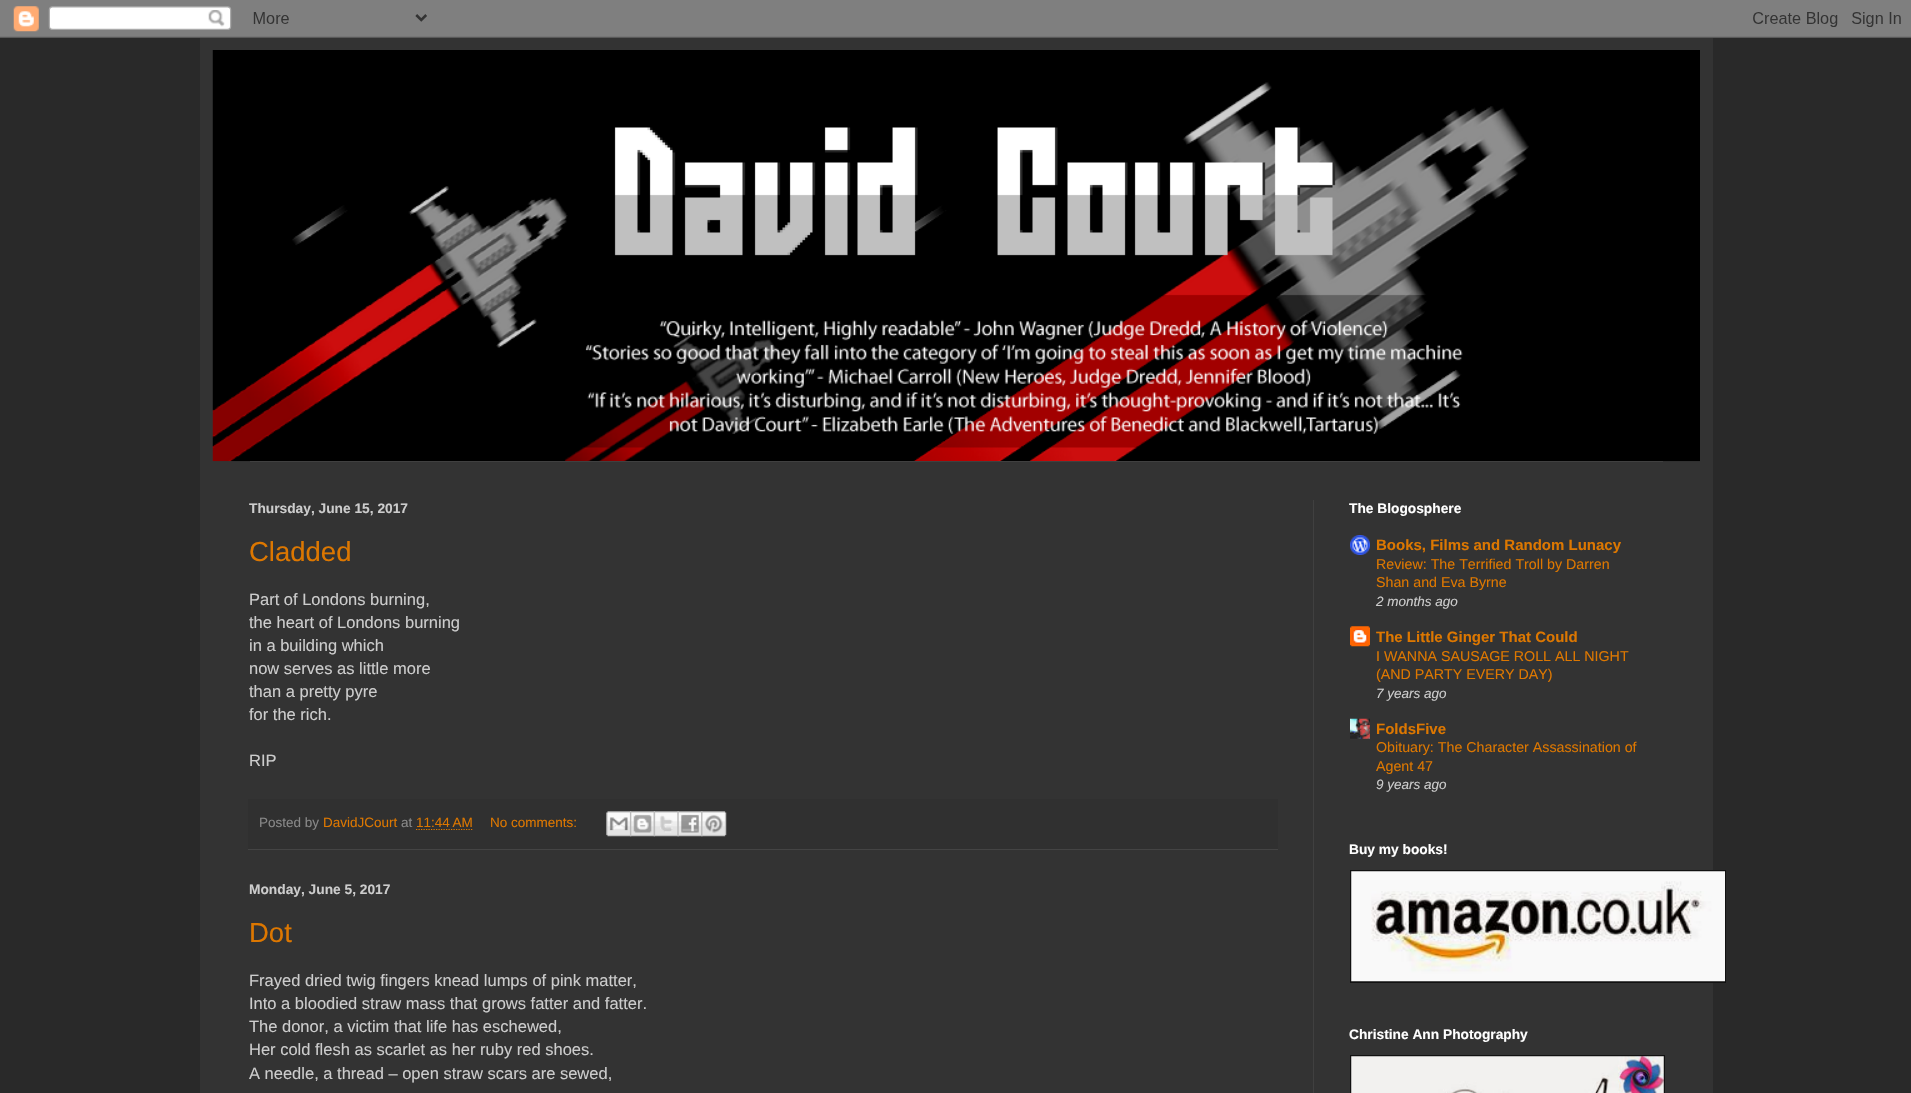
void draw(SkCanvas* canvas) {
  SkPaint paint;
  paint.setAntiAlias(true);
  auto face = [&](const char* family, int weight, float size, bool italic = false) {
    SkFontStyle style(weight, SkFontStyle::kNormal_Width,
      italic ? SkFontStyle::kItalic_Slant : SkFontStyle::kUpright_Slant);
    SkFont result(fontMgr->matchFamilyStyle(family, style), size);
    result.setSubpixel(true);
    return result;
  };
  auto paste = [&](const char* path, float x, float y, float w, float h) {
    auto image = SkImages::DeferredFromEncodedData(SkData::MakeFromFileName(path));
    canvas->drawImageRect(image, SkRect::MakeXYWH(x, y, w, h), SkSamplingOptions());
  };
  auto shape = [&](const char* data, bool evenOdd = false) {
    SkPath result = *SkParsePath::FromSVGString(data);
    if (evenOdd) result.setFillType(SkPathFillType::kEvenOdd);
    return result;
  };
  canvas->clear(0xff292929);
  paste("img/1.png", 0, 0, 1911, 38);
  paint.setColor(0xff333333);
  canvas->drawRect(SkRect::MakeXYWH(200, 38, 1513, 1055), paint);
  paste("img/2.png", 212, 50, 1488, 412);
  {
    const struct { float x, y, w, h; SkColor color; } items[] = {
      {250, 461, 1413, 1, 0xff404040},
      {1313, 500, 1, 593, 0xff404040},
      {248, 799, 1030, 50, 0xff303030},
      {248, 849, 1030, 1, 0xff444444},
    };
    for (auto [x, y, w, h, color] : items) {
      paint.setColor(color);
      canvas->drawRect(SkRect::MakeXYWH(x, y, w, h), paint);
    }
  }
  paint.setStroke(true);
  paint.setStrokeWidth(1.2f);
  paint.setColor(0xffdd7700);
  paint.setPathEffect(SkDashPathEffect::Make({{1.25f, 1.25f}}, 0));
  canvas->drawPath(shape("M416 829.5H473"), paint);
  paint.setPathEffect(nullptr);
  paste("img/3.png", 606, 811, 26, 26);
  paste("img/4.png", 630, 811, 25, 26);
  paste("img/5.png", 653, 811, 26, 26);
  paste("img/6.png", 677, 811, 26, 26);
  paste("img/7.png", 701, 811, 26, 26);
  paste("img/8.png", 1350, 535, 20, 20);
  paste("img/9.png", 1350, 626, 20, 21);
  paste("img/10.png", 1350, 718, 20, 21);
  paint.setStroke(false);
  paint.setColor(0xff111111);
  canvas->drawRect(SkRect::MakeXYWH(1350, 870, 376, 113), paint);
  paste("img/11.png", 1351, 871, 374, 111);
  canvas->drawRect(SkRect::MakeXYWH(1350, 1055, 315, 38), paint);
  paste("img/12.png", 1351, 1056, 313, 37);
  auto f0 = face("Liberation Sans", 700, 13.75f);
  paint.setColor(0xffcccccc);
  canvas->drawString("Thursday, June 15, 2017", 249, 513, f0, paint);
  auto f1 = face("Liberation Sans", 400, 27.5f);
  paint.setColor(0xffdd7700);
  canvas->drawString("Cladded", 249, 561, f1, paint);
  auto f2 = face("Liberation Sans", 400, 16.5f);
  paint.setColor(0xffcccccc);
  {
    const struct { const char* s; float x, y; } items[] = {
      {"Part of Londons burning,", 249, 605},
      {"the heart of Londons burning", 249, 628},
      {"in a building which", 249, 651},
      {"now serves as little more", 249, 674},
      {"than a pretty pyre", 249, 697},
      {"for the rich.", 249, 720},
      {"RIP", 249, 766},
    };
    for (auto [s, x, y] : items) {
      canvas->drawString(s, x, y, f2, paint);
    }
  }
  auto f3 = face("Liberation Sans", 400, 13.5f);
  paint.setColor(0xff888888);
  canvas->drawString("Posted by", 259, 827, f3, paint);
  paint.setColor(0xffdd7700);
  canvas->drawString("DavidJCourt", 323, 827, f3, paint);
  paint.setColor(0xff888888);
  canvas->drawString("at", 401, 827, f3, paint);
  paint.setColor(0xffdd7700);
  canvas->drawString("11:44 AM", 416, 827, f3, paint);
  canvas->drawString("No comments:", 490, 827, f3, paint);
  paint.setColor(0xffcccccc);
  canvas->drawString("Monday, June 5, 2017", 249, 894, f0, paint);
  paint.setColor(0xffdd7700);
  canvas->drawString("Dot", 249, 942, f1, paint);
  paint.setColor(0xffcccccc);
  {
    const struct { const char* s; float x, y; } items[] = {
      {"Frayed dried twig fingers knead lumps of pink matter,", 249, 986},
      {"Into a bloodied straw mass that grows fatter and fatter.", 249, 1009},
      {"The donor, a victim that life has eschewed,", 249, 1032},
      {"Her cold flesh as scarlet as her ruby red shoes.", 249, 1055},
      {"A needle, a thread – open straw scars are sewed,", 249, 1079},
    };
    for (auto [s, x, y] : items) {
      canvas->drawString(s, x, y, f2, paint);
    }
  }
  paint.setColor(0xffffffff);
  canvas->drawString("The Blogosphere", 1349, 513, f0, paint);
  auto f4 = face("Liberation Sans", 700, 15);
  paint.setColor(0xffdd7700);
  canvas->drawString("Books, Films and Random Lunacy", 1376, 550, f4, paint);
  auto f5 = face("Liberation Sans", 400, 14.25f);
  canvas->drawString("Review: The Terrified Troll by Darren", 1376, 569, f5, paint);
  canvas->drawString("Shan and Eva Byrne", 1376, 587, f5, paint);
  auto f6 = face("Liberation Sans", 400, 13.5f, true);
  paint.setColor(0xffcccccc);
  canvas->drawString("2 months ago", 1376, 606, f6, paint);
  paint.setColor(0xffdd7700);
  canvas->drawString("The Little Ginger That Could", 1376, 642, f4, paint);
  canvas->drawString("I WANNA SAUSAGE ROLL ALL NIGHT", 1376, 661, f5, paint);
  canvas->drawString("(AND PARTY EVERY DAY)", 1376, 679, f5, paint);
  paint.setColor(0xffcccccc);
  canvas->drawString("7 years ago", 1376, 698, f6, paint);
  paint.setColor(0xffdd7700);
  canvas->drawString("FoldsFive", 1376, 734, f4, paint);
  canvas->drawString("Obituary: The Character Assassination of", 1376, 752, f5, paint);
  canvas->drawString("Agent 47", 1376, 771, f5, paint);
  paint.setColor(0xffcccccc);
  canvas->drawString("9 years ago", 1376, 789, f6, paint);
  paint.setColor(0xffffffff);
  canvas->drawString("Buy my books!", 1349, 854, f0, paint);
  canvas->drawString("Christine Ann Photography", 1349, 1039, f0, paint);
}
